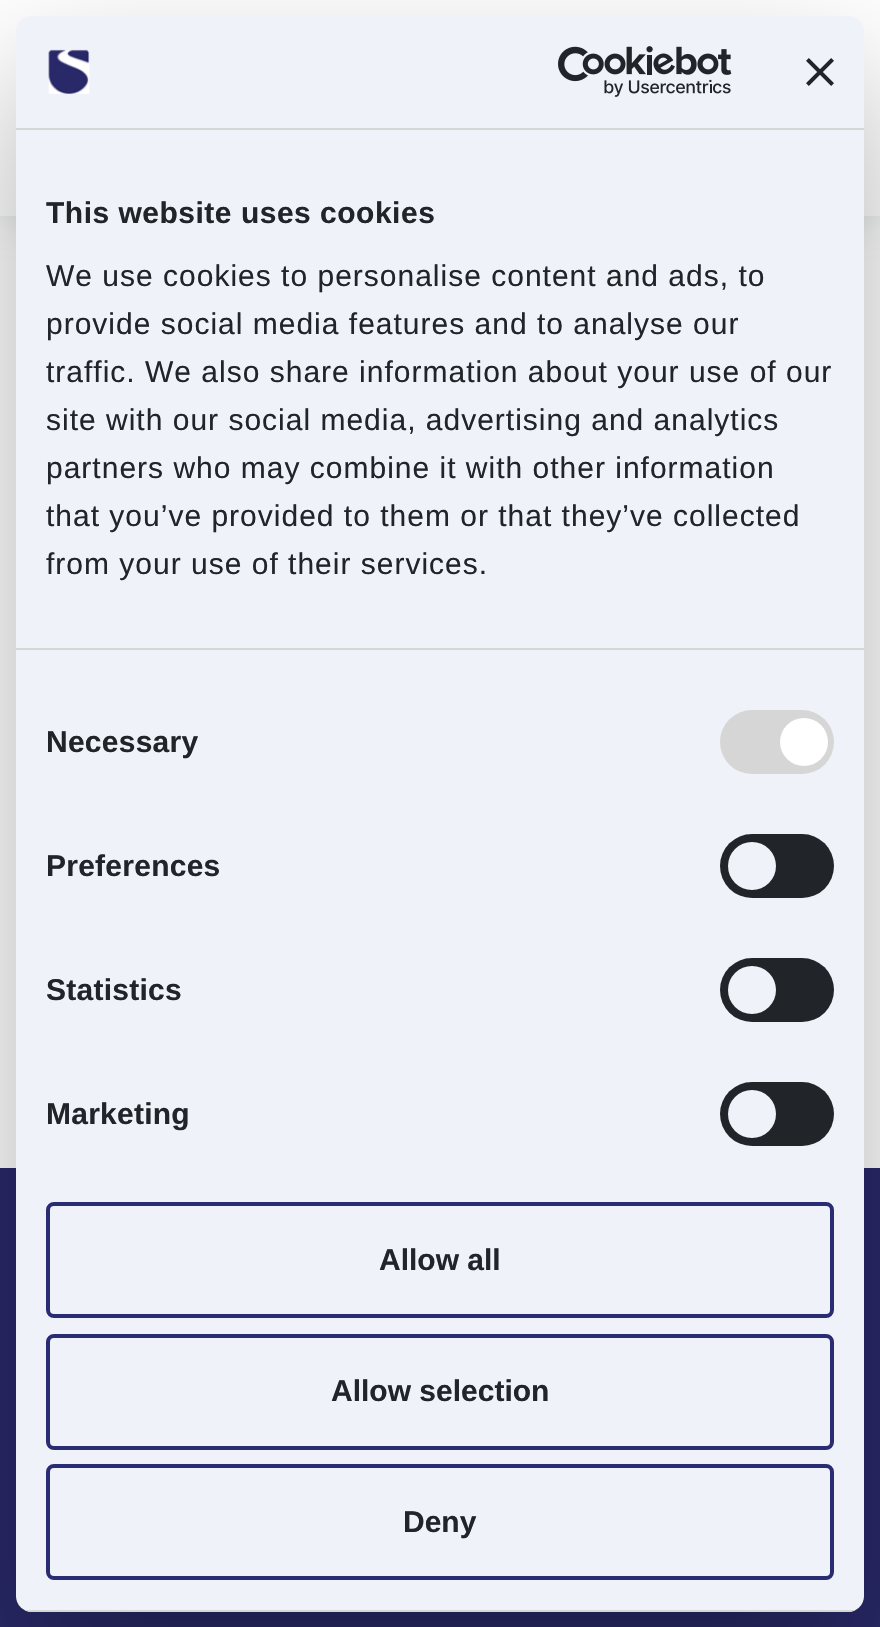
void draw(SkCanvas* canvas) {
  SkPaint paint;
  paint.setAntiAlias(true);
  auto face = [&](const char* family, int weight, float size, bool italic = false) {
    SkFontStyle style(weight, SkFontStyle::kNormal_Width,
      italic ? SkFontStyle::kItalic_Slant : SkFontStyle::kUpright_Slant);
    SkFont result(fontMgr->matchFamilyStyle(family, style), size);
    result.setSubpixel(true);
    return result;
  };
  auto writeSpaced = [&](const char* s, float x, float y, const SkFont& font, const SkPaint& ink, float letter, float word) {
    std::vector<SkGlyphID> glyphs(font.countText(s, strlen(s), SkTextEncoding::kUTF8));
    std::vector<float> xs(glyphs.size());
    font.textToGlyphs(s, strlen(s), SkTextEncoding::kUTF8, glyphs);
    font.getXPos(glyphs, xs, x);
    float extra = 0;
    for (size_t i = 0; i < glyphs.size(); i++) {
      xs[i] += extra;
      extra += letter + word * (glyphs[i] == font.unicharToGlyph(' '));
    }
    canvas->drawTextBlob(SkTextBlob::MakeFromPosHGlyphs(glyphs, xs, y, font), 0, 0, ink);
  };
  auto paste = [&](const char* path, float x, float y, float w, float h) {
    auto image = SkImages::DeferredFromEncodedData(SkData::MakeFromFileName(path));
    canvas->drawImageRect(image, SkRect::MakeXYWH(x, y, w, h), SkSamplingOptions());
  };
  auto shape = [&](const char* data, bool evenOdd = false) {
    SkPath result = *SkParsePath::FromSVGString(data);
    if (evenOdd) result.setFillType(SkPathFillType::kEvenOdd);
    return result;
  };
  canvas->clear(0xffffffff);
  paint.setColor(0x66959da5);
  paint.setMaskFilter(SkMaskFilter::MakeBlur(kNormal_SkBlurStyle, 20));
  canvas->drawRect(SkRect::MakeXYWH(0, 0, 880, 216), paint);
  paint.setMaskFilter(nullptr);
  paint.setColor(0xffffffff);
  canvas->drawRect(SkRect::MakeXYWH(0, 0, 880, 216), paint);
  paint.setColor(0xff292969);
  canvas->drawRect(SkRect::MakeXYWH(0, 1168, 880, 459), paint);
  paint.setColor(0x4d000000);
  paint.setMaskFilter(SkMaskFilter::MakeBlur(kNormal_SkBlurStyle, 68));
  canvas->drawRoundRect(SkRect::MakeXYWH(16, 80, 848, 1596), 16, 16, paint);
  paint.setMaskFilter(nullptr);
  paint.setColor(0xffeff2f8);
  canvas->drawRoundRect(SkRect::MakeXYWH(16, 16, 848, 1596), 16, 16, paint);
  paint.setColor(0xffd6d6d6);
  canvas->drawRect(SkRect::MakeXYWH(16, 128, 848, 2), paint);
  paste("img/1.png", 48, 49, 42, 45);
  paste("img/2.png", 558, 46, 174, 51);
  paste("img/3.png", 806, 58, 28, 28);
  canvas->drawRect(SkRect::MakeXYWH(16, 648, 848, 2), paint);
  canvas->drawRoundRect(SkRect::MakeXYWH(720, 710, 114, 64), 32, 32, paint);
  paint.setColor(0xffffffff);
  canvas->drawCircle(804, 742, 24, paint);
  paint.setColor(0xff212529);
  canvas->drawRoundRect(SkRect::MakeXYWH(720, 834, 114, 64), 32, 32, paint);
  paint.setColor(0xffeff2f8);
  canvas->drawCircle(752, 866, 24, paint);
  paint.setColor(0xff212529);
  canvas->drawRoundRect(SkRect::MakeXYWH(720, 958, 114, 64), 32, 32, paint);
  paint.setColor(0xffeff2f8);
  canvas->drawCircle(752, 990, 24, paint);
  paint.setColor(0xff212529);
  canvas->drawRoundRect(SkRect::MakeXYWH(720, 1082, 114, 64), 32, 32, paint);
  paint.setColor(0xffeff2f8);
  canvas->drawCircle(752, 1114, 24, paint);
  canvas->save();
  canvas->clipPath(shape("M32 16H848C857 16 864 23 864 32V1596C864 1605 857 1612 848 1612H32C23 1612 16 1605 16 1596V32C16 23 23 16 32 16Z"), true);
  paint.setColor(0xffd6d6d6);
  canvas->drawRect(SkRect::MakeXYWH(16, 1610, 848, 2), paint);
  canvas->restore();
  paint.setStroke(true);
  paint.setStrokeWidth(4);
  paint.setColor(0xff292c73);
  canvas->drawRoundRect(SkRect::MakeXYWH(48, 1204, 784, 112), 6, 6, paint);
  canvas->drawRoundRect(SkRect::MakeXYWH(48, 1336, 784, 112), 6, 6, paint);
  canvas->drawRoundRect(SkRect::MakeXYWH(48, 1466, 784, 112), 6, 6, paint);
  auto f0 = face("Liberation Sans", 700, 30);
  paint.setStroke(false);
  paint.setColor(0xff212529);
  writeSpaced("This website uses cookies", 46, 223, f0, paint, 0.5f, 0);
  auto f1 = face("Liberation Sans", 400, 30);
  {
    const struct { const char* s; float x, y; } items[] = {
      {"We use cookies to personalise content and ads, to", 46, 286},
      {"provide social media features and to analyse our", 46, 334},
      {"traffic. We also share information about your use of our", 46, 382},
      {"site with our social media, advertising and analytics", 46, 430},
      {"partners who may combine it with other information", 46, 478},
      {"that you’ve provided to them or that they’ve collected", 46, 526},
      {"from your use of their services.", 46, 574},
    };
    for (auto [s, x, y] : items) {
      writeSpaced(s, x, y, f1, paint, 1, 0);
    }
  }
  {
    const struct { const char* s; float x, y; } items[] = {
      {"Necessary", 46, 752},
      {"Preferences", 46, 876},
      {"Statistics", 46, 1000},
      {"Marketing", 46, 1124},
    };
    for (auto [s, x, y] : items) {
      writeSpaced(s, x, y, f0, paint, 0.25f, 0);
    }
  }
  {
    const struct { const char* s; float x, y; } items[] = {
      {"Allow all", 379, 1270},
      {"Allow selection", 331, 1401},
      {"Deny", 403, 1532},
    };
    for (auto [s, x, y] : items) {
      canvas->drawString(s, x, y, f0, paint);
    }
  }
}
